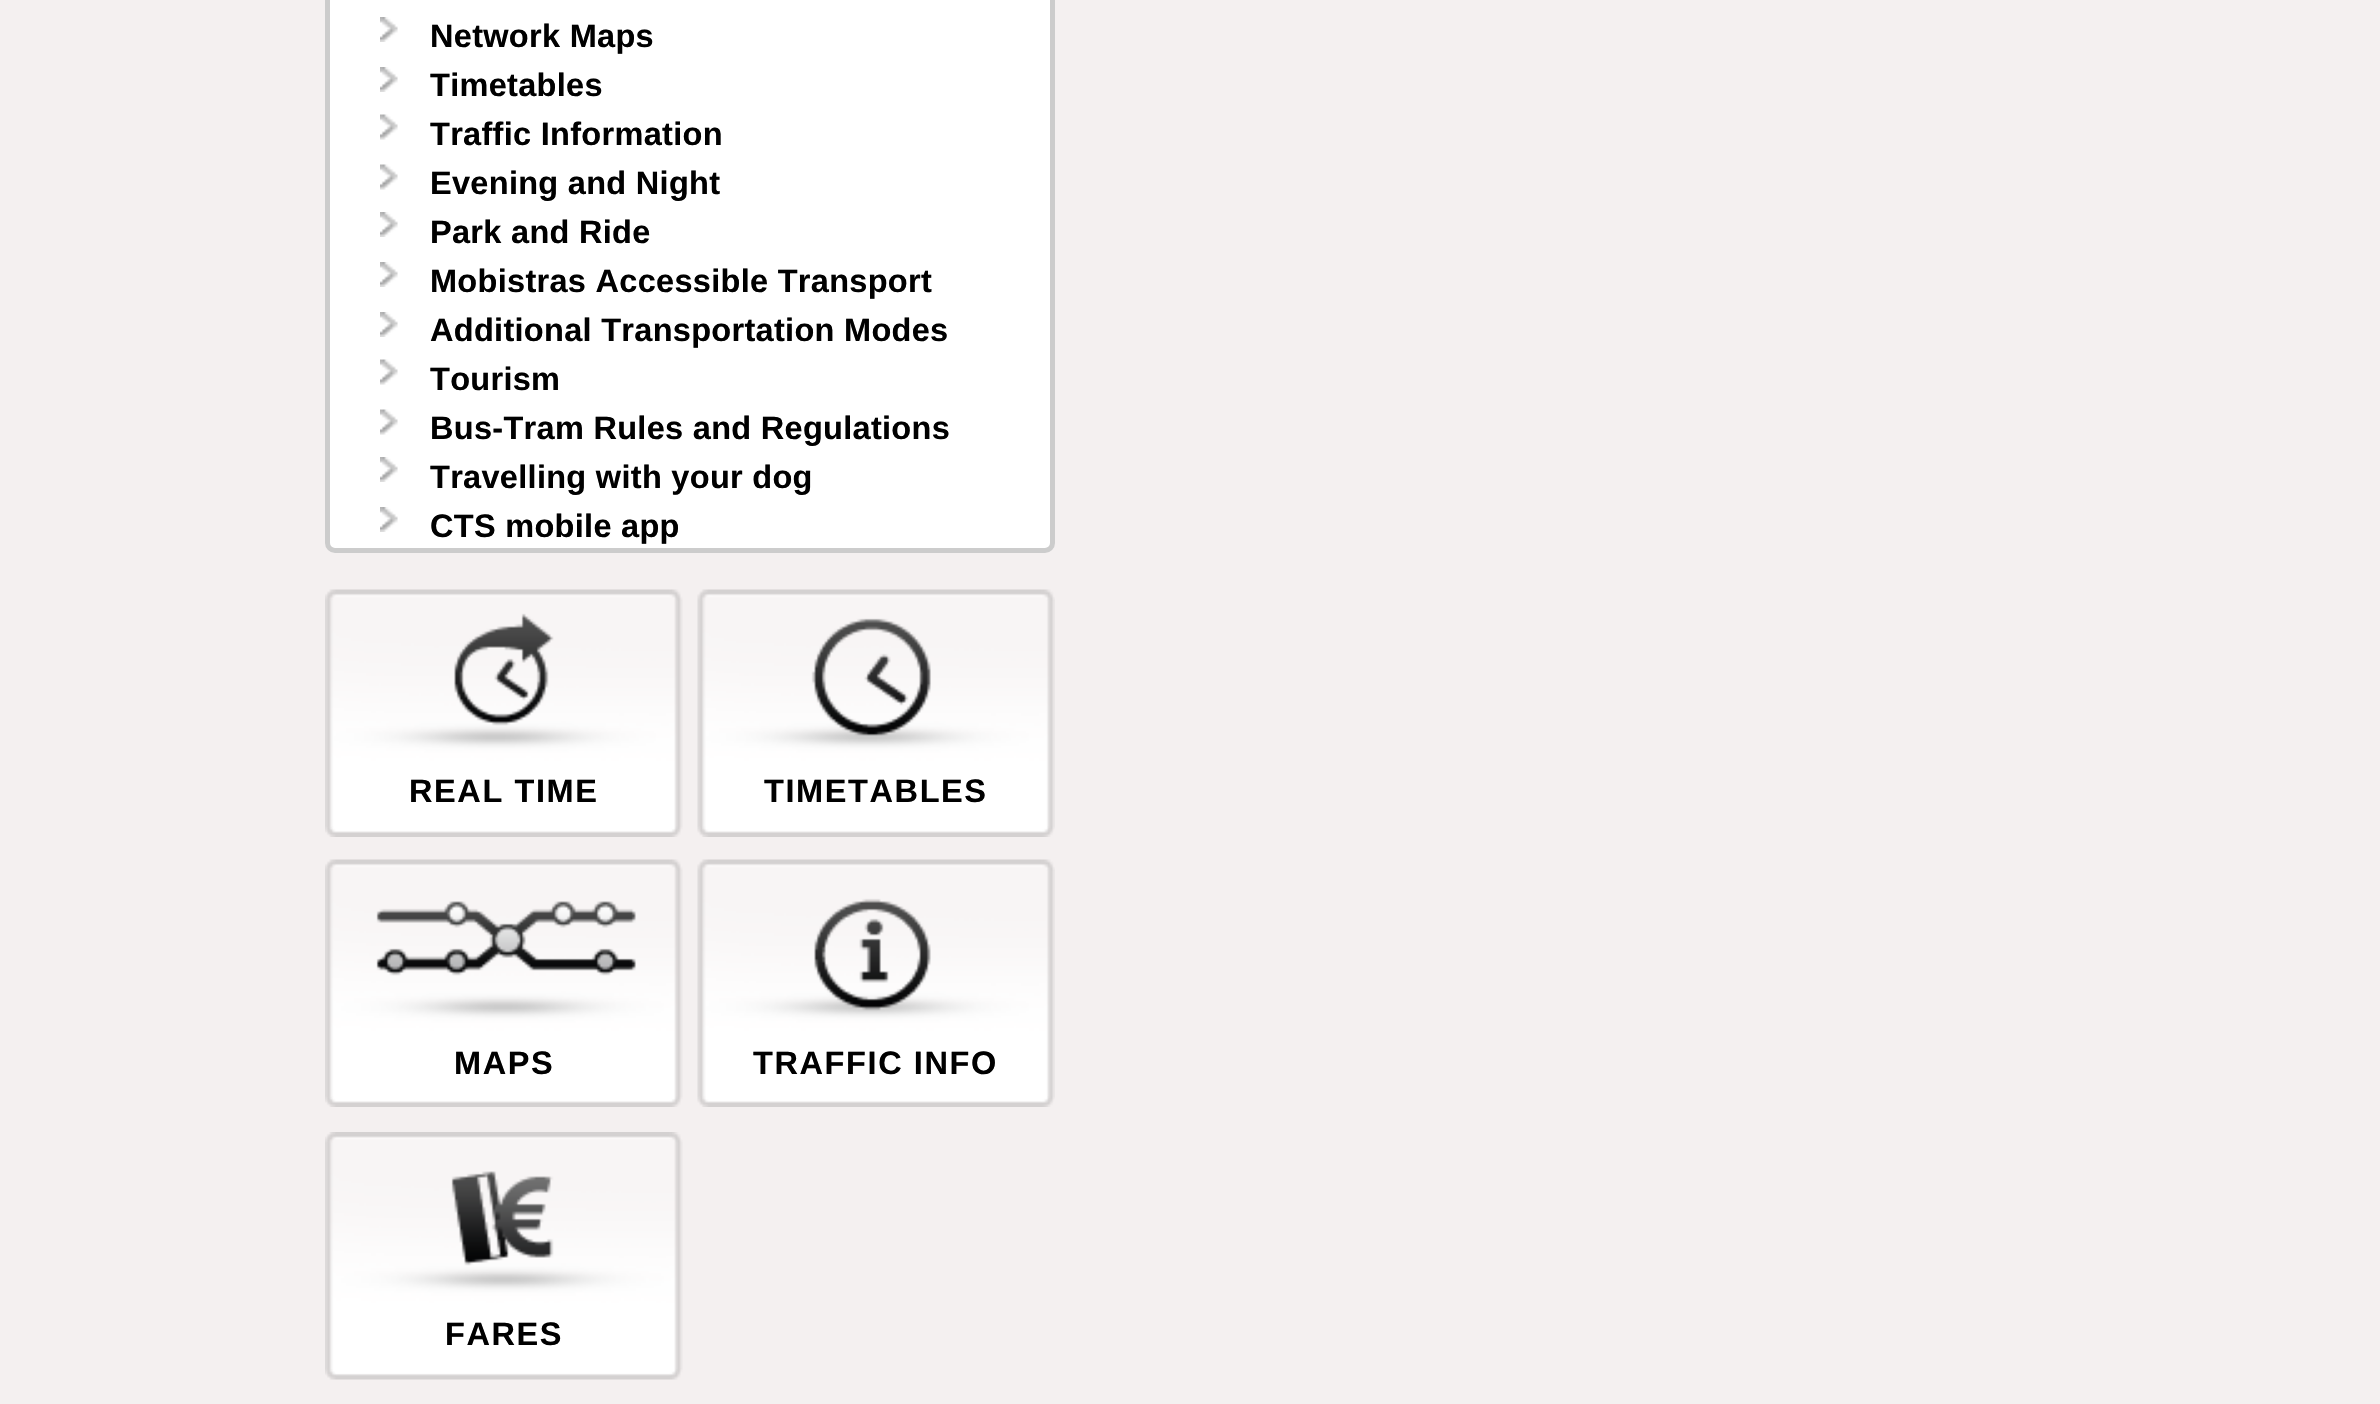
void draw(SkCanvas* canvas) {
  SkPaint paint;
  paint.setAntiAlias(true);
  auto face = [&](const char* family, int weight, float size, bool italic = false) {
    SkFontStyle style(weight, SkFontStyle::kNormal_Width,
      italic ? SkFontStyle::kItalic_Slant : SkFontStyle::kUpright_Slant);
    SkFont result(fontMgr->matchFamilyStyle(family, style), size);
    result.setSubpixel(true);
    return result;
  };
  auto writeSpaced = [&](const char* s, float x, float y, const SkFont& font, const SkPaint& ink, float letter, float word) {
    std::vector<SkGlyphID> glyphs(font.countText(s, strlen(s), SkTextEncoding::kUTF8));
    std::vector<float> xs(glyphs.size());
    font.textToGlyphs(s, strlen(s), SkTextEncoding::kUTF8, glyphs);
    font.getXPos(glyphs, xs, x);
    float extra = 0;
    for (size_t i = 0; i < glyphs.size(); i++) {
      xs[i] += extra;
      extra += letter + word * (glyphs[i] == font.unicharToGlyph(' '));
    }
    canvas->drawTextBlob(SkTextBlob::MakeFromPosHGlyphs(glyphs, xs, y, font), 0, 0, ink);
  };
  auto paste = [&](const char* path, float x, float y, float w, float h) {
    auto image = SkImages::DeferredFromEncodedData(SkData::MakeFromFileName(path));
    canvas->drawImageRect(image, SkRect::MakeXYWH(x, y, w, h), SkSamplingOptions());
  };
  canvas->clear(0xfff4f0f0);
  paint.setColor(0xffffffff);
  canvas->drawRoundRect(SkRect::MakeXYWH(327.5f, -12.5f, 725, 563), 7.5f, 7.5f, paint);
  paint.setStroke(true);
  paint.setStrokeWidth(5);
  paint.setColor(0xffcccccc);
  canvas->drawRoundRect(SkRect::MakeXYWH(327.5f, -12.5f, 725, 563), 7.5f, 7.5f, paint);
  paste("img/1.png", 380, 17, 18, 25);
  paste("img/1.png", 380, 67, 18, 25);
  paste("img/2.png", 380, 114, 18, 26);
  paste("img/2.png", 380, 164, 18, 26);
  paste("img/1.png", 380, 212, 18, 25);
  paste("img/1.png", 380, 262, 18, 25);
  paste("img/1.png", 380, 312, 18, 25);
  paste("img/2.png", 380, 359, 18, 26);
  paste("img/2.png", 380, 409, 18, 26);
  paste("img/1.png", 380, 457, 18, 25);
  paste("img/1.png", 380, 507, 18, 25);
  paste("img/3.png", 325, 589, 358, 248);
  paste("img/4.png", 697, 589, 358, 248);
  paste("img/5.png", 325, 859, 358, 248);
  paste("img/6.png", 697, 859, 358, 248);
  paste("img/7.png", 325, 1132, 358, 248);
  auto f0 = face("Liberation Sans", 700, 32.5f);
  paint.setStroke(false);
  paint.setColor(0xff000000);
  {
    const struct { const char* s; float x, y; } items[] = {
      {"Network Maps", 430, 47},
      {"Timetables", 430, 96},
      {"Traffic Information", 430, 145},
      {"Evening and Night", 430, 194},
      {"Park and Ride", 430, 243},
      {"Mobistras Accessible Transport", 430, 292},
      {"Additional Transportation Modes", 430, 341},
      {"Tourism", 430, 390},
      {"Bus-Tram Rules and Regulations", 430, 439},
      {"Travelling with your dog", 430, 488},
      {"CTS mobile app", 430, 537},
    };
    for (auto [s, x, y] : items) {
      writeSpaced(s, x, y, f0, paint, 0.3f, 0);
    }
  }
  {
    const struct { const char* s; float x, y; } items[] = {
      {"REAL TIME", 409, 802},
      {"TIMETABLES", 764, 802},
      {"MAPS", 454, 1074},
      {"TRAFFIC INFO", 753, 1074},
      {"FARES", 445, 1345},
    };
    for (auto [s, x, y] : items) {
      writeSpaced(s, x, y, f0, paint, 1.6f, 0);
    }
  }
}
